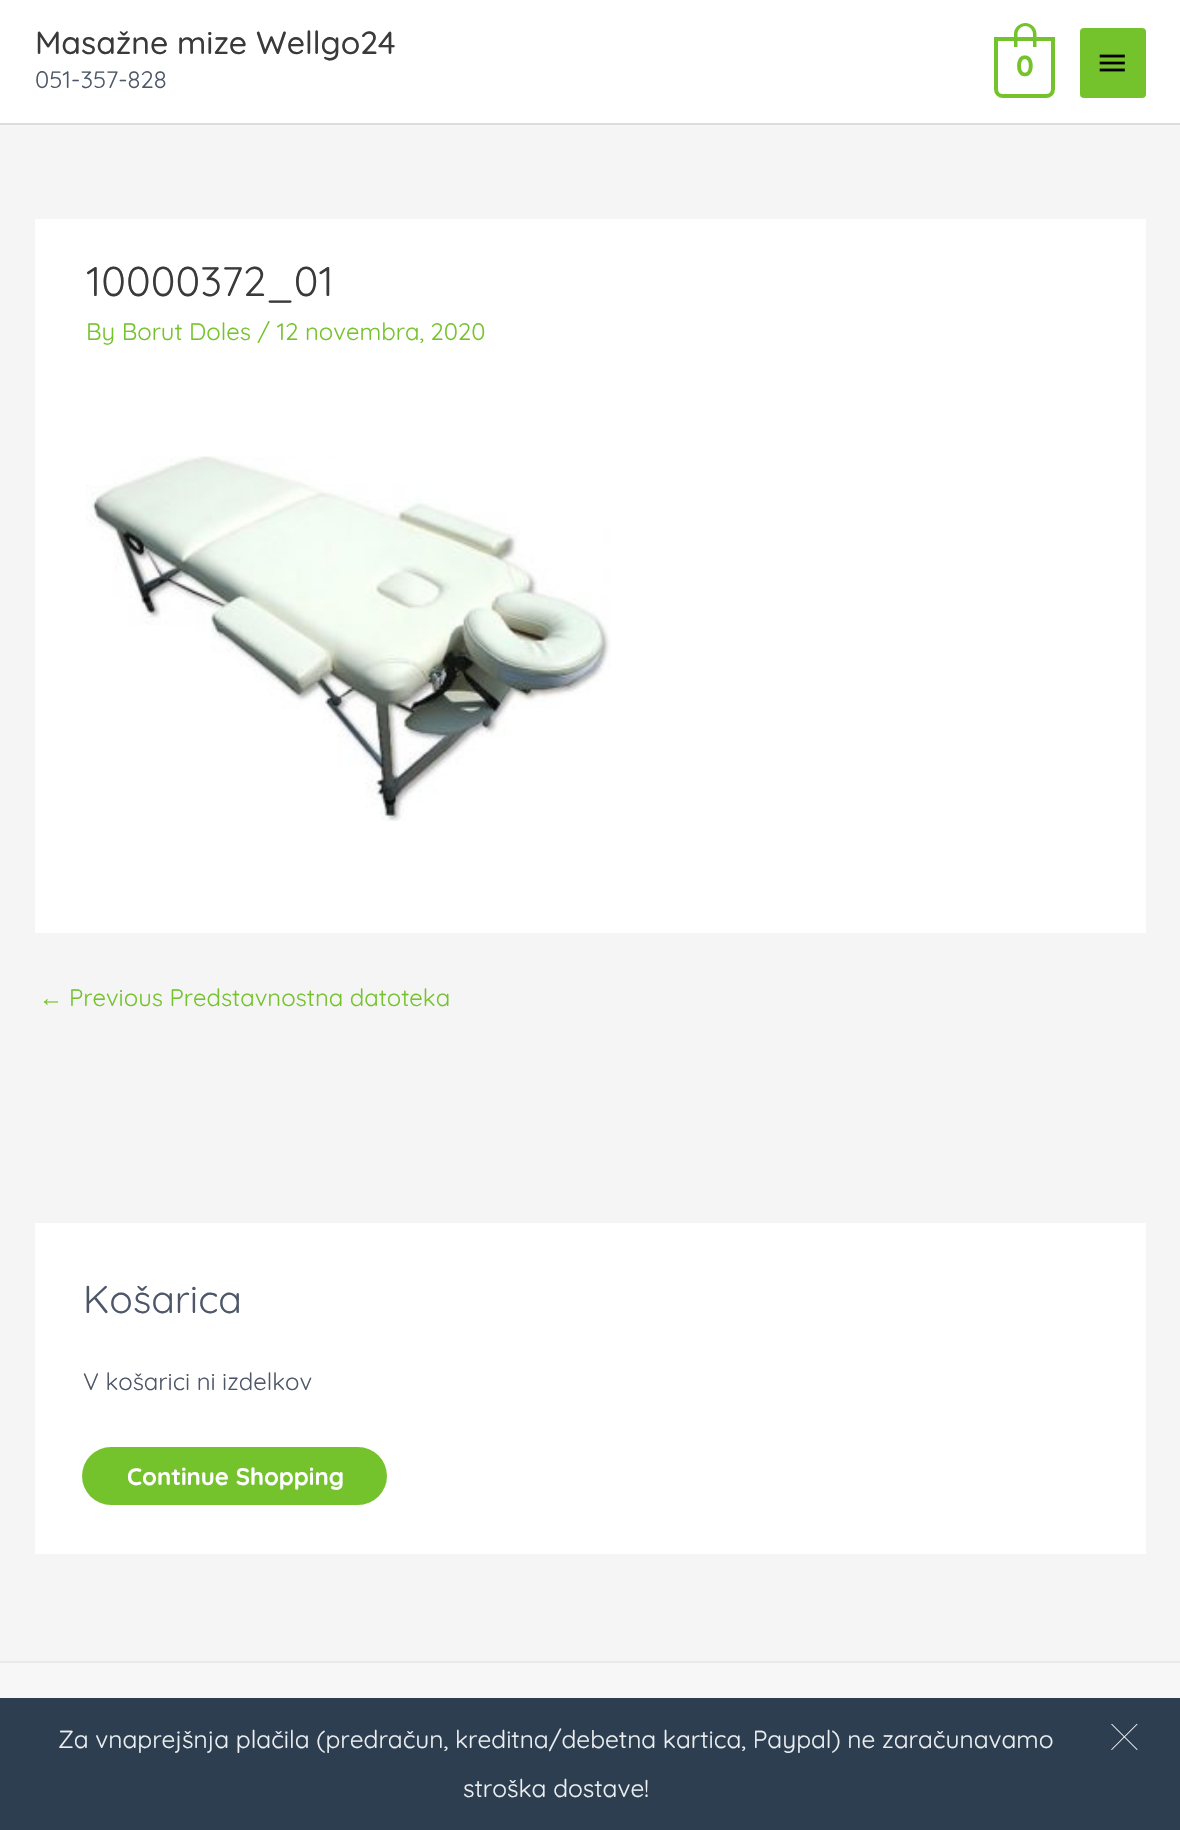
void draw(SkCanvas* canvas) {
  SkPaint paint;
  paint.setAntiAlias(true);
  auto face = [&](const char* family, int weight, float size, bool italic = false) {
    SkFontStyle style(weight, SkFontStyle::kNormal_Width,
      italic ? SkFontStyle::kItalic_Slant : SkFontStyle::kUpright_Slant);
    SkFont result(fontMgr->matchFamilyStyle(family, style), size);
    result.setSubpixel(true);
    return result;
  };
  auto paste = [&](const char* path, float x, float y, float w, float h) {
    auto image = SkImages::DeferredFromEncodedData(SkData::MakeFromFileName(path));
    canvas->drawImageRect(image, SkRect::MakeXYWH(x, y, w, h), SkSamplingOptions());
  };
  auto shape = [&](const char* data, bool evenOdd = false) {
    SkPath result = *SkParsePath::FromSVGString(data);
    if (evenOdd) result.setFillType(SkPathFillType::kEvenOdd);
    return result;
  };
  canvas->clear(0xfff5f5f5);
  paint.setColor(0xffffffff);
  canvas->drawRect(SkRect::MakeXYWH(0, 0, 1180, 123), paint);
  paint.setColor(0xffdddddd);
  canvas->drawRect(SkRect::MakeXYWH(0, 123, 1180, 2), paint);
  paint.setStroke(true);
  paint.setStrokeWidth(4);
  paint.setColor(0xff75c32c);
  canvas->drawPath(shape("M996 39H1053V89C1053 93 1050 96 1046 96H1003C999 96 996 93 996 89Z"), paint);
  paint.setStroke(false);
  canvas->drawPath(shape("M1025.5 23C1031.5 23 1036.5 28 1036.5 34V47H1014V34C1014 28 1019 23 1025.5 23ZM1025.5 26C1029.5 26 1033 30 1033 34V47H1017.5V34C1017.5 30 1021 26 1025.5 26Z", true), paint);
  canvas->drawRoundRect(SkRect::MakeXYWH(1080, 28, 66, 70), 4, 4, paint);
  paste("img/1.png", 1099, 54, 26, 18);
  paint.setColor(0xffffffff);
  canvas->drawRect(SkRect::MakeXYWH(35, 219, 1111, 714), paint);
  paste("img/2.png", 86, 456, 525, 365);
  canvas->drawRect(SkRect::MakeXYWH(35, 1223, 1111, 331), paint);
  paint.setColor(0xff75c32c);
  canvas->drawRoundRect(SkRect::MakeXYWH(82, 1447, 305, 58), 29, 29, paint);
  {
    const struct { float x, y, w, h; SkColor color; } items[] = {
      {0, 1661, 1180, 2, 0xffeaeaea},
      {0, 1663, 1180, 35, 0xfff7f7f8},
      {0, 1698, 1180, 132, 0xff2d3e50},
    };
    for (auto [x, y, w, h, color] : items) {
      paint.setColor(color);
      canvas->drawRect(SkRect::MakeXYWH(x, y, w, h), paint);
    }
  }
  paste("img/3.png", 1111, 1723, 27, 27);
  auto f0 = face("Quicksand", 500, 32);
  paint.setColor(0xff3a3a3a);
  canvas->drawString("Masažne mize Wellgo24", 35, 54, f0, paint);
  auto f1 = face("Quicksand", 400, 23.9f);
  paint.setColor(0xff4e5768);
  canvas->drawString("051-357-828", 35, 88, f1, paint);
  auto f2 = face("Quicksand", 700, 29);
  paint.setColor(0xff75c32c);
  canvas->drawString("0", 1016, 76, f2, paint);
  auto f3 = face("Quicksand", 400, 41.5f);
  paint.setColor(0xff3a3a3a);
  canvas->drawString("10000372_01", 86, 296, f3, paint);
  paint.setColor(0xff75c32c);
  canvas->drawString("By Borut Doles / 12 novembra, 2020", 86, 340, f1, paint);
  auto f4 = face("Liberation Sans", 400, 23.9f);
  canvas->drawString("←", 39, 1006, f4, paint);
  canvas->drawString("Previous Predstavnostna datoteka", 69, 1006, f1, paint);
  auto f5 = face("Quicksand", 400, 39);
  paint.setColor(0xff4e5768);
  canvas->drawString("Košarica", 83, 1313, f5, paint);
  canvas->drawString("V košarici ni izdelkov", 83, 1390, f1, paint);
  auto f6 = face("Quicksand", 700, 23.9f);
  paint.setColor(0xffffffff);
  canvas->drawString("Continue Shopping", 127, 1485, f6, paint);
  auto f7 = face("Quicksand", 400, 24.5f);
  paint.setColor(0xffeceff1);
  canvas->drawString("Za vnaprejšnja plačila (predračun, kreditna/debetna kartica, Paypal) ne zaračunavamo", 58, 1748, f7, paint);
  canvas->drawString("stroška dostave!", 463, 1797, f7, paint);
}
